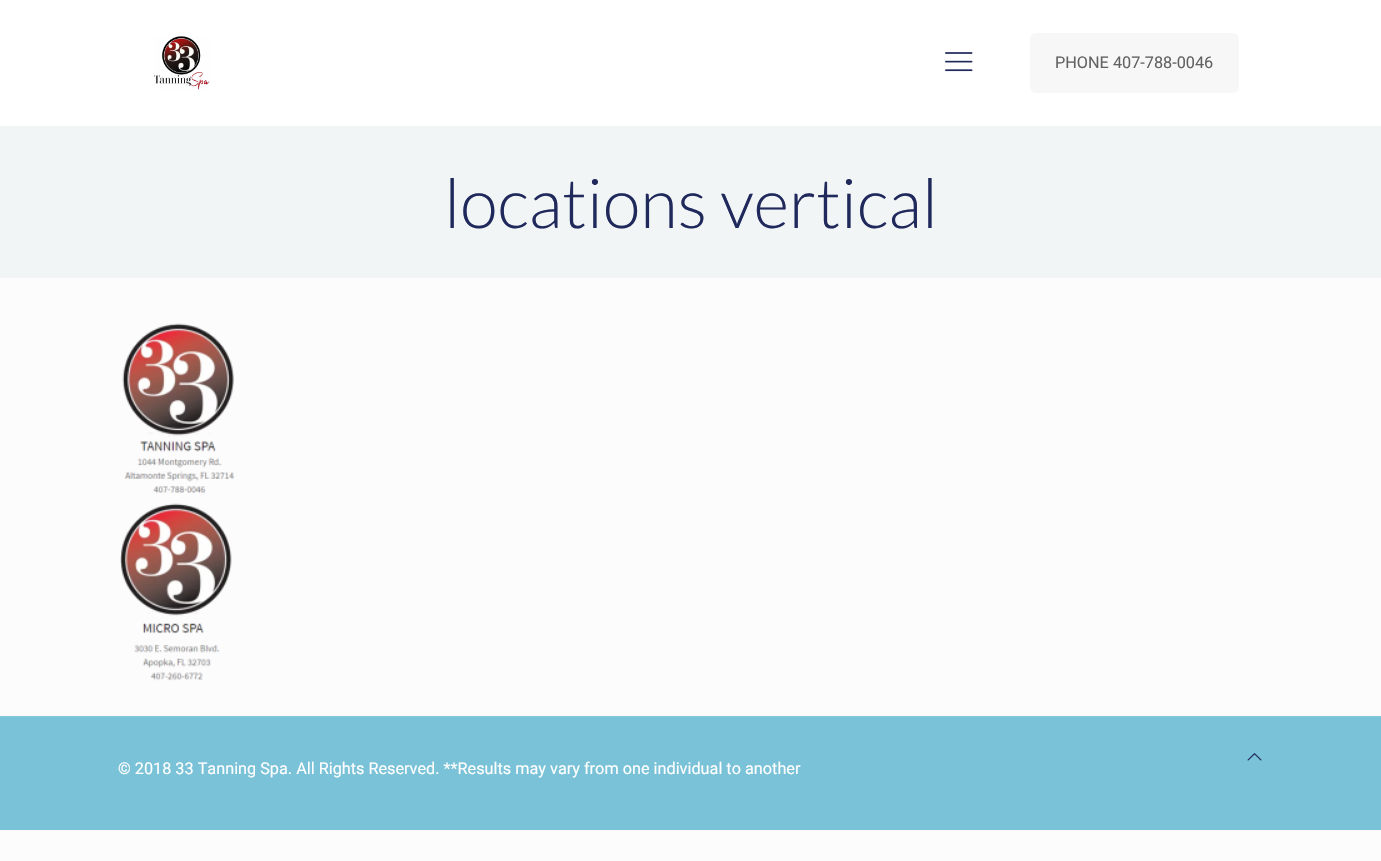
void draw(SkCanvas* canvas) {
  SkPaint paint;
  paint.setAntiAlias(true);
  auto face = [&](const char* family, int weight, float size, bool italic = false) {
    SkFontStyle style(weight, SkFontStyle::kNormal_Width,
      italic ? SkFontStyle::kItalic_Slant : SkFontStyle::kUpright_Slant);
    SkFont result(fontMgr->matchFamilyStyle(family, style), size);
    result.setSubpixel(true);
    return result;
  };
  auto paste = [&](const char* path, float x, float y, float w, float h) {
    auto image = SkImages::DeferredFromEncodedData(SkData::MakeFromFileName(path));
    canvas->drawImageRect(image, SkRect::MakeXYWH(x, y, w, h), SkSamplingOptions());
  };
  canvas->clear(0xfffcfcfc);
  paint.setColor(0xffffffff);
  canvas->drawRect(SkRect::MakeXYWH(0, 0, 1381, 126), paint);
  paste("img/1.png", 154, 36, 56, 54);
  paste("img/2.png", 945, 52, 28, 20);
  paint.setColor(0xfff7f7f7);
  canvas->drawRoundRect(SkRect::MakeXYWH(1030, 33, 209, 60), 6, 6, paint);
  paint.setColor(0xfff2f5f6);
  canvas->drawRect(SkRect::MakeXYWH(0, 126, 1381, 152), paint);
  paste("img/3.png", 120, 323, 114, 358);
  paint.setColor(0xff7ac2d7);
  canvas->drawRect(SkRect::MakeXYWH(0, 717, 1381, 113), paint);
  paint.setColor(0xff87c8db);
  canvas->drawRect(SkRect::MakeXYWH(0, 716, 1381, 1), paint);
  paste("img/4.png", 1247, 753, 15, 8);
  auto f0 = face("Roboto", 400, 16.25f);
  paint.setColor(0xff626262);
  canvas->drawString("PHONE 407-788-0046", 1055, 68, f0, paint);
  auto f1 = face("Lato", 300, 68.75f);
  paint.setColor(0xff20295b);
  canvas->drawString("locations vertical", 444, 228, f1, paint);
  paint.setColor(0xffffffff);
  canvas->drawString("© 2018 33 Tanning Spa. All Rights Reserved. **Results may vary from one individual to another", 118, 774, f0, paint);
}
